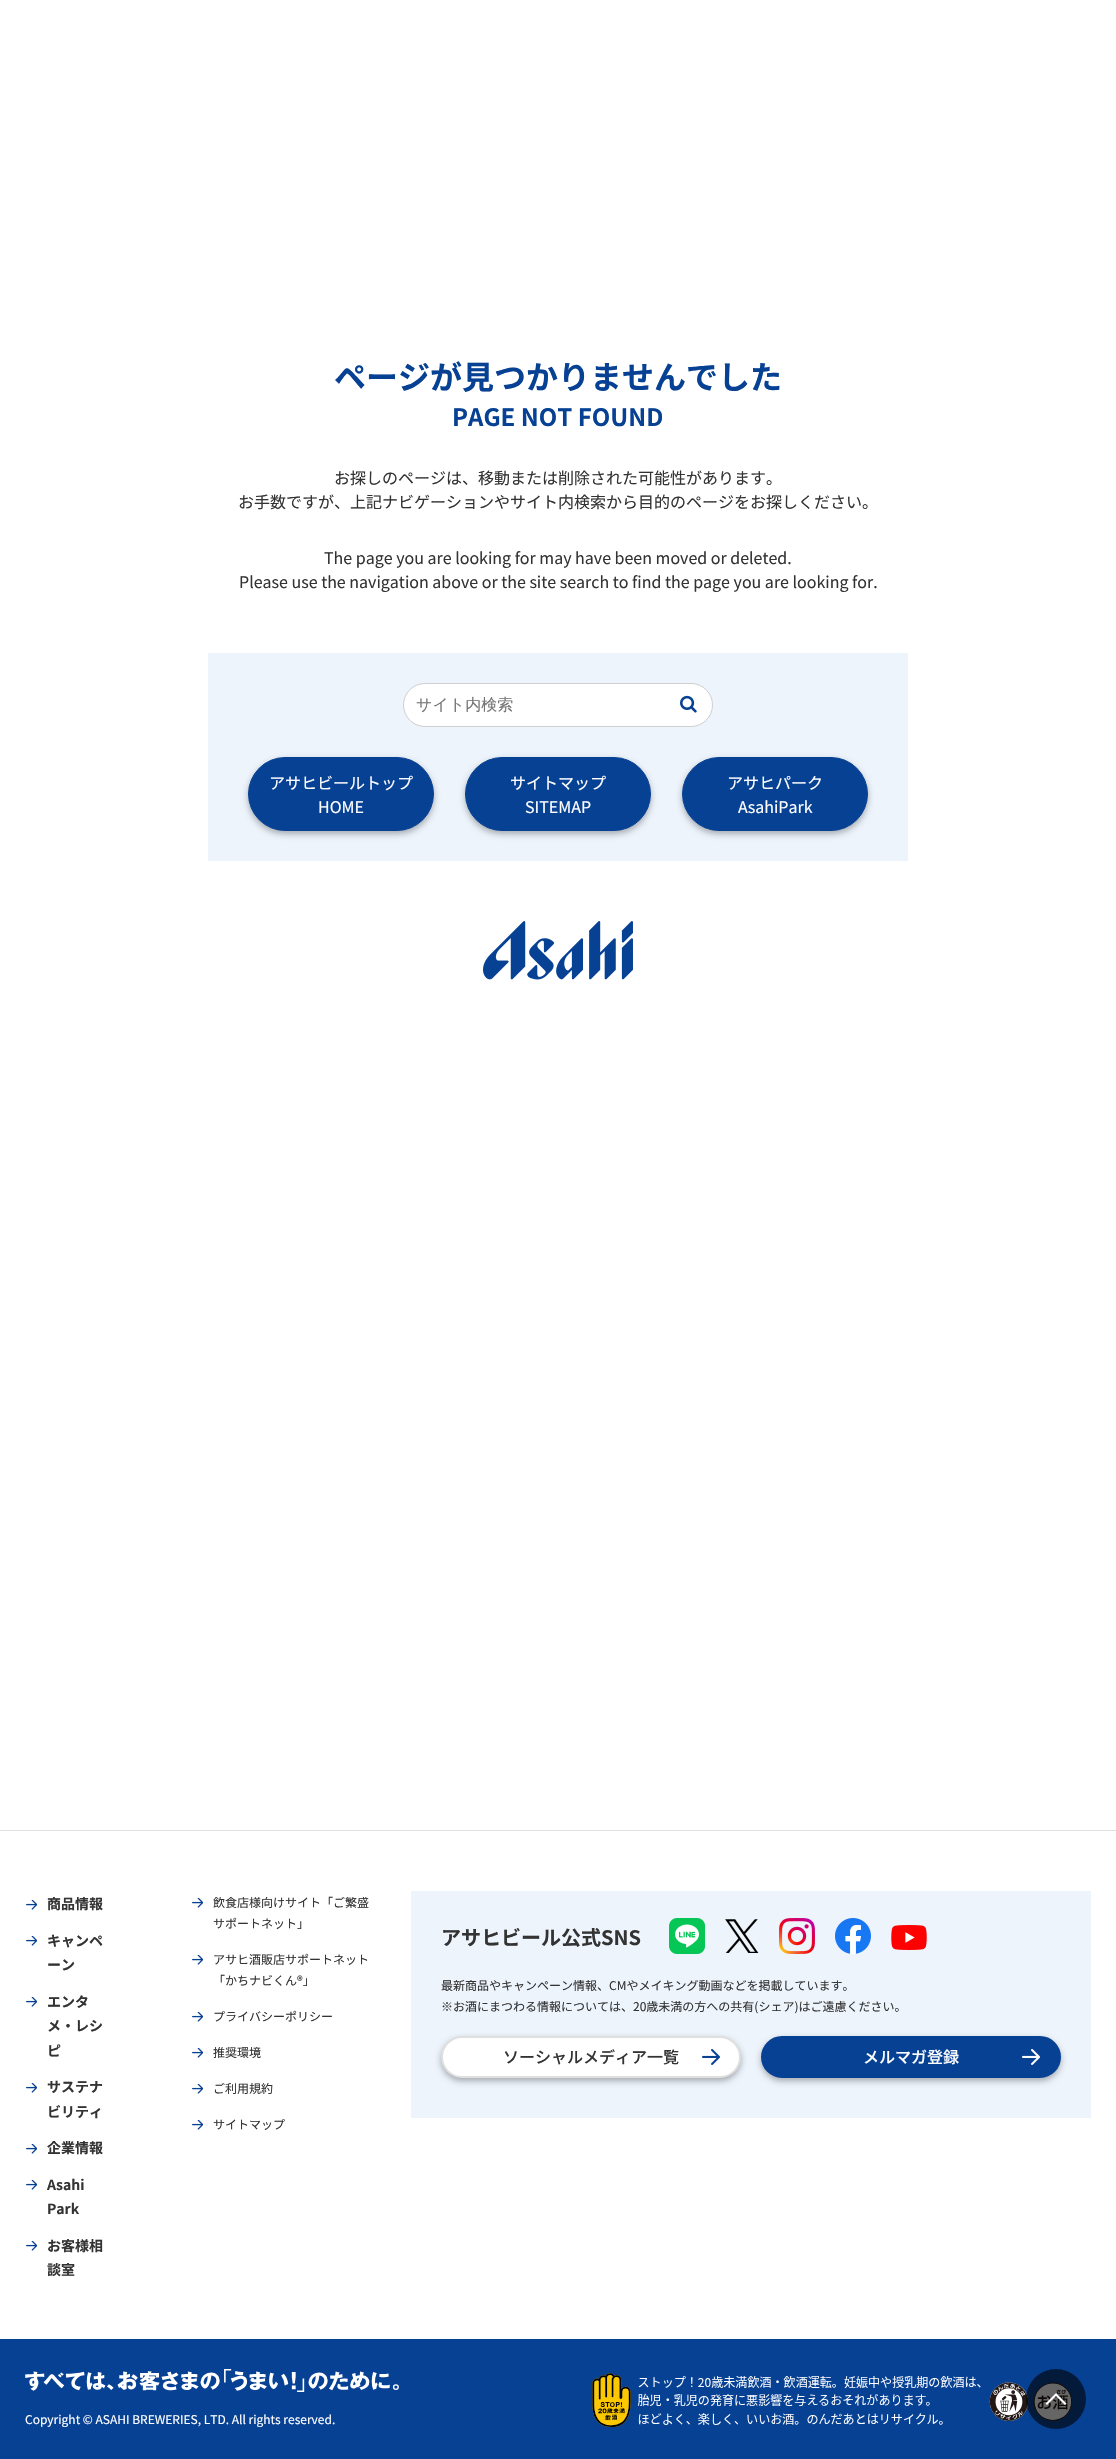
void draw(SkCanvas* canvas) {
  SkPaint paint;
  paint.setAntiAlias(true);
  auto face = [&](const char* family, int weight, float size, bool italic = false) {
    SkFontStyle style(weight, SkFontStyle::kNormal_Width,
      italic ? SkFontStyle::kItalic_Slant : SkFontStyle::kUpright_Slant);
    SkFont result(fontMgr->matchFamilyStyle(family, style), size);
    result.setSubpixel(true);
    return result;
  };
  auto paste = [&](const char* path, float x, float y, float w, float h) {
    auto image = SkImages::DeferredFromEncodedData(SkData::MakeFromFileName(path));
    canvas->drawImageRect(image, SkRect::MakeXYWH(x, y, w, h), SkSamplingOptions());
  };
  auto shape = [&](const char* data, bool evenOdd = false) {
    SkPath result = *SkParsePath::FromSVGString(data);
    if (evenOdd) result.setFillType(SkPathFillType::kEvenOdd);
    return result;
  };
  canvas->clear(0xffffffff);
  paint.setColor(0xffedf4fc);
  canvas->drawRect(SkRect::MakeXYWH(208, 653, 700, 208), paint);
  paint.setColor(0xffffffff);
  canvas->drawRoundRect(SkRect::MakeXYWH(403.5f, 683.5f, 309, 43), 21.5f, 21.5f, paint);
  paint.setStroke(true);
  paint.setStrokeWidth(1);
  paint.setColor(0xffcfcfcf);
  canvas->drawRoundRect(SkRect::MakeXYWH(403.5f, 683.5f, 309, 43), 21.5f, 21.5f, paint);
  paste("img/1.png", 680, 695, 17, 18);
  paint.setStroke(false);
  paint.setColor(0x4d000000);
  paint.setMaskFilter(SkMaskFilter::MakeBlur(kNormal_SkBlurStyle, 3));
  canvas->drawRoundRect(SkRect::MakeXYWH(248, 760, 186, 74), 37, 37, paint);
  paint.setMaskFilter(nullptr);
  paint.setColor(0xff074194);
  canvas->drawRoundRect(SkRect::MakeXYWH(248.5f, 757.5f, 185, 73), 36.5f, 36.5f, paint);
  paint.setStroke(true);
  canvas->drawRoundRect(SkRect::MakeXYWH(248.5f, 757.5f, 185, 73), 36.5f, 36.5f, paint);
  paint.setStroke(false);
  paint.setColor(0x4d000000);
  paint.setMaskFilter(SkMaskFilter::MakeBlur(kNormal_SkBlurStyle, 3));
  canvas->drawRoundRect(SkRect::MakeXYWH(465, 760, 186, 74), 37, 37, paint);
  paint.setMaskFilter(nullptr);
  paint.setColor(0xff074194);
  canvas->drawRoundRect(SkRect::MakeXYWH(465.5f, 757.5f, 185, 73), 36.5f, 36.5f, paint);
  paint.setStroke(true);
  canvas->drawRoundRect(SkRect::MakeXYWH(465.5f, 757.5f, 185, 73), 36.5f, 36.5f, paint);
  paint.setStroke(false);
  paint.setColor(0x4d000000);
  paint.setMaskFilter(SkMaskFilter::MakeBlur(kNormal_SkBlurStyle, 3));
  canvas->drawRoundRect(SkRect::MakeXYWH(682, 760, 186, 74), 37, 37, paint);
  paint.setMaskFilter(nullptr);
  paint.setColor(0xff074194);
  canvas->drawRoundRect(SkRect::MakeXYWH(682.5f, 757.5f, 185, 73), 36.5f, 36.5f, paint);
  paint.setStroke(true);
  canvas->drawRoundRect(SkRect::MakeXYWH(682.5f, 757.5f, 185, 73), 36.5f, 36.5f, paint);
  paste("img/2.png", 483, 921, 150, 59);
  paint.setStroke(false);
  paint.setColor(0xffdfdfdf);
  canvas->drawRect(SkRect::MakeXYWH(0, 1830, 1116, 1), paint);
  paste("img/3.png", 26, 1900, 11, 10);
  paste("img/3.png", 26, 1936, 11, 10);
  paste("img/3.png", 26, 1997, 11, 10);
  paste("img/3.png", 26, 2083, 11, 10);
  paste("img/3.png", 26, 2144, 11, 10);
  paste("img/3.png", 26, 2180, 11, 10);
  paste("img/3.png", 26, 2241, 11, 10);
  paste("img/3.png", 192, 1898, 11, 10);
  paste("img/3.png", 192, 1955, 11, 10);
  paste("img/3.png", 192, 2012, 11, 10);
  paste("img/3.png", 192, 2048, 11, 10);
  paste("img/3.png", 192, 2084, 11, 10);
  paste("img/3.png", 192, 2120, 11, 10);
  paint.setColor(0xffedf4fc);
  canvas->drawRect(SkRect::MakeXYWH(411, 1891, 680, 227), paint);
  paste("img/4.png", 669, 1918, 36, 36);
  paste("img/5.png", 725, 1919, 34, 34);
  paste("img/6.png", 779, 1918, 36, 36);
  paste("img/7.png", 835, 1918, 36, 36);
  paste("img/8.png", 891, 1925, 36, 25);
  paint.setColor(0x4d000000);
  paint.setMaskFilter(SkMaskFilter::MakeBlur(kNormal_SkBlurStyle, 3));
  canvas->drawRoundRect(SkRect::MakeXYWH(441, 2039, 300, 42), 21, 21, paint);
  paint.setMaskFilter(nullptr);
  paint.setColor(0xffffffff);
  canvas->drawRoundRect(SkRect::MakeXYWH(442, 2037, 298, 40), 20, 20, paint);
  paint.setStroke(true);
  paint.setStrokeWidth(2);
  paint.setColor(0xffdfdfdf);
  canvas->drawRoundRect(SkRect::MakeXYWH(442, 2037, 298, 40), 20, 20, paint);
  paste("img/9.png", 702, 2049, 18, 16);
  paint.setStroke(false);
  paint.setColor(0x4d000000);
  paint.setMaskFilter(SkMaskFilter::MakeBlur(kNormal_SkBlurStyle, 3));
  canvas->drawRoundRect(SkRect::MakeXYWH(761, 2039, 300, 42), 21, 21, paint);
  paint.setMaskFilter(nullptr);
  paint.setColor(0xff074194);
  canvas->drawRoundRect(SkRect::MakeXYWH(762, 2037, 298, 40), 20, 20, paint);
  paint.setStroke(true);
  canvas->drawRoundRect(SkRect::MakeXYWH(762, 2037, 298, 40), 20, 20, paint);
  paste("img/10.png", 1022, 2049, 18, 16);
  paint.setStroke(false);
  canvas->drawRect(SkRect::MakeXYWH(0, 2339, 1116, 120), paint);
  paste("img/11.png", 25, 2369, 374, 23);
  paste("img/12.png", 592, 2373, 481, 54);
  paint.setColor(0x99000000);
  canvas->drawCircle(1056, 2399, 30, paint);
  paint.setColor(0xffffffff);
  canvas->drawPath(shape("M1066.5 2403.5L1065 2405L1056 2396L1047 2405L1045.5 2403.5L1056 2393Z"), paint);
  auto f0 = face("Noto Sans JP", 700, 32);
  paint.setColor(0xff074194);
  canvas->drawString("ページが見つかりませんでした", 334, 389, f0, paint);
  auto f1 = face("Noto Sans JP", 700, 24);
  canvas->drawString("PAGE NOT FOUND", 452, 426, f1, paint);
  auto f2 = face("Noto Sans JP", 400, 16);
  paint.setColor(0xff333333);
  {
    const struct { const char* s; float x, y; } items[] = {
      {"お探しのページは、移動または削除された可能性があります。", 334, 484},
      {"お手数ですが、上記ナビゲーションやサイト内検索から目的のページをお探しください。", 238, 508},
      {"The page you are looking for may have been moved or deleted.", 324, 564},
      {"Please use the navigation above or the site search to find the page you are looking for.", 239, 588},
    };
    for (auto [s, x, y] : items) {
      canvas->drawString(s, x, y, f2, paint);
    }
  }
  auto f3 = face("WenQuanYi Zen Hei", 500, 16);
  paint.setColor(0xff757575);
  canvas->drawString("サイト内検索", 416, 710, f3, paint);
  paint.setColor(0xffffffff);
  {
    const struct { const char* s; float x, y; } items[] = {
      {"アサヒビールトップ", 269, 789},
      {"HOME", 318, 813},
      {"サイトマップ", 510, 789},
      {"SITEMAP", 525, 813},
      {"アサヒパーク", 727, 789},
      {"AsahiPark", 738, 813},
    };
    for (auto [s, x, y] : items) {
      canvas->drawString(s, x, y, f2, paint);
    }
  }
  auto f4 = face("Noto Sans JP", 700, 14);
  paint.setColor(0xff333333);
  {
    const struct { const char* s; float x, y; } items[] = {
      {"商品情報", 47, 1909},
      {"キャンペ", 47, 1946},
      {"ーン", 47, 1970},
      {"エンタ", 47, 2007},
      {"メ・レシ", 47, 2031},
      {"ピ", 47, 2056},
      {"サステナ", 47, 2092},
      {"ビリティ", 47, 2117},
      {"企業情報", 47, 2153},
      {"Asahi", 47, 2190},
      {"Park", 47, 2214},
      {"お客様相", 47, 2251},
      {"談室", 47, 2275},
    };
    for (auto [s, x, y] : items) {
      canvas->drawString(s, x, y, f4, paint);
    }
  }
  auto f5 = face("Noto Sans JP", 400, 12);
  {
    const struct { const char* s; float x, y; } items[] = {
      {"飲食店様向けサイト「ご繁盛", 213, 1907},
      {"サポートネット」", 213, 1928},
      {"アサヒ酒販店サポートネット", 213, 1964},
      {"「かちナビくん®」", 213, 1985},
      {"プライバシーポリシー", 213, 2021},
      {"推奨環境", 213, 2057},
      {"ご利用規約", 213, 2093},
      {"サイトマップ", 213, 2129},
    };
    for (auto [s, x, y] : items) {
      canvas->drawString(s, x, y, f5, paint);
    }
  }
  auto f6 = face("Noto Sans JP", 700, 20);
  canvas->drawString("アサヒビール公式SNS", 441, 1945, f6, paint);
  canvas->drawString("最新商品やキャンペーン情報、CMやメイキング動画などを掲載しています。", 441, 1990, f5, paint);
  canvas->drawString("※お酒にまつわる情報については、20歳未満の方への共有(シェア)はご遠慮ください。", 441, 2011, f5, paint);
  auto f7 = face("Noto Sans JP", 500, 16);
  canvas->drawString("ソーシャルメディア一覧", 503, 2063, f7, paint);
  paint.setColor(0xffffffff);
  canvas->drawString("メルマガ登録", 863, 2063, f7, paint);
  canvas->drawString("Copyright © ASAHI BREWERIES, LTD. All rights reserved.", 25, 2424, f5, paint);
}
